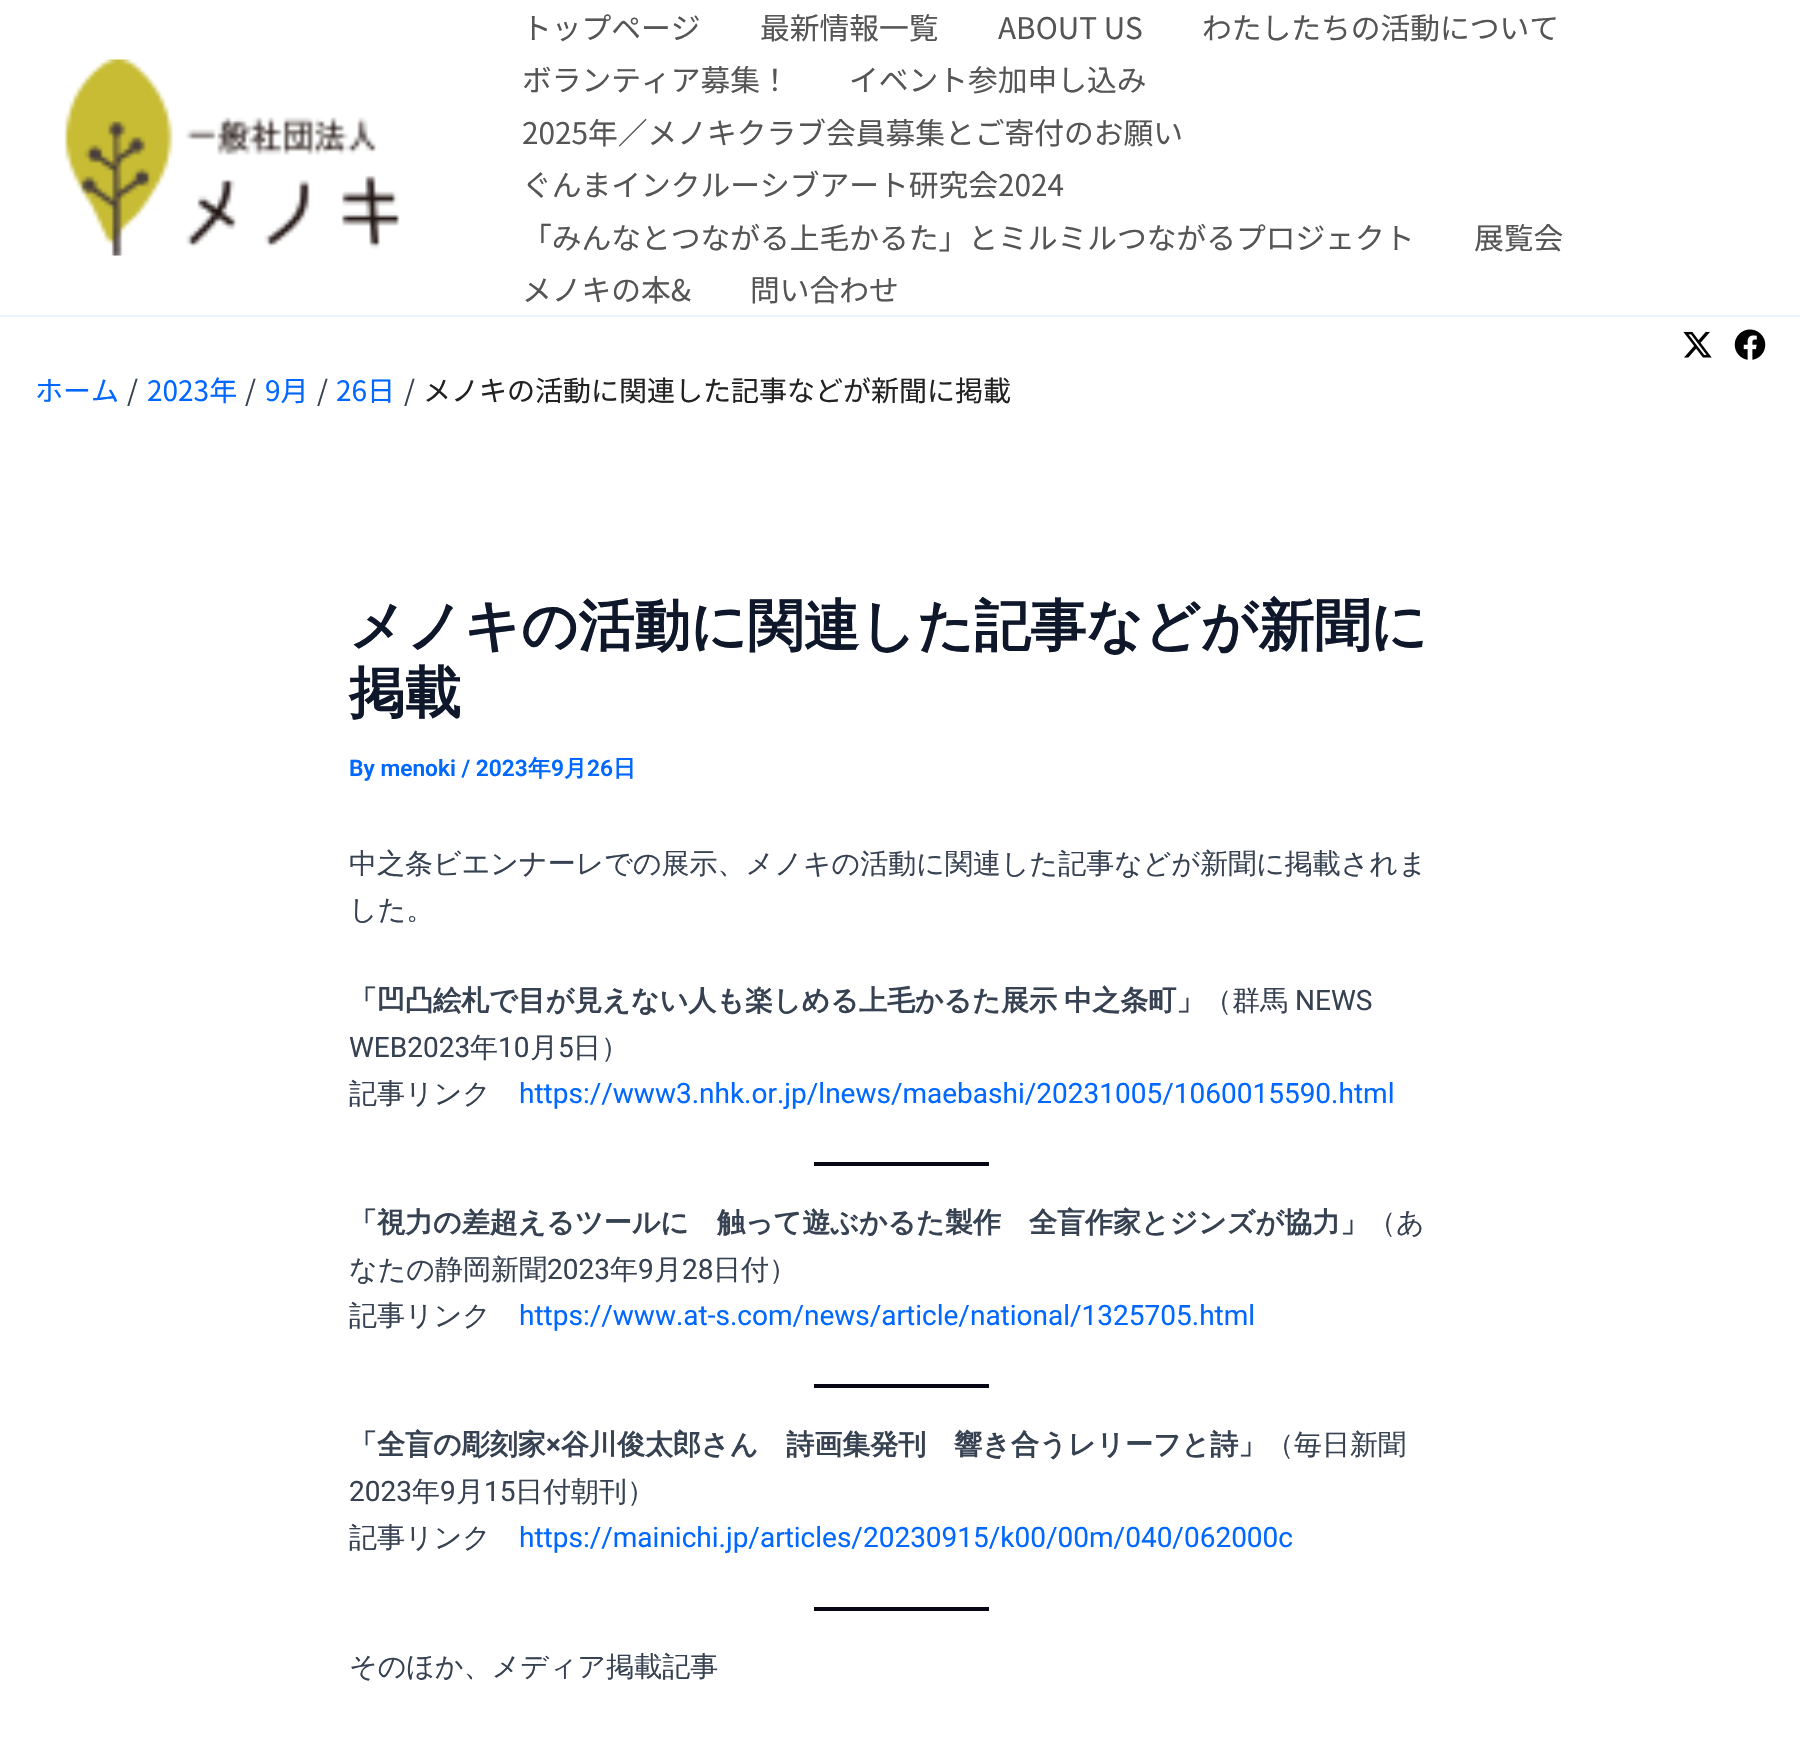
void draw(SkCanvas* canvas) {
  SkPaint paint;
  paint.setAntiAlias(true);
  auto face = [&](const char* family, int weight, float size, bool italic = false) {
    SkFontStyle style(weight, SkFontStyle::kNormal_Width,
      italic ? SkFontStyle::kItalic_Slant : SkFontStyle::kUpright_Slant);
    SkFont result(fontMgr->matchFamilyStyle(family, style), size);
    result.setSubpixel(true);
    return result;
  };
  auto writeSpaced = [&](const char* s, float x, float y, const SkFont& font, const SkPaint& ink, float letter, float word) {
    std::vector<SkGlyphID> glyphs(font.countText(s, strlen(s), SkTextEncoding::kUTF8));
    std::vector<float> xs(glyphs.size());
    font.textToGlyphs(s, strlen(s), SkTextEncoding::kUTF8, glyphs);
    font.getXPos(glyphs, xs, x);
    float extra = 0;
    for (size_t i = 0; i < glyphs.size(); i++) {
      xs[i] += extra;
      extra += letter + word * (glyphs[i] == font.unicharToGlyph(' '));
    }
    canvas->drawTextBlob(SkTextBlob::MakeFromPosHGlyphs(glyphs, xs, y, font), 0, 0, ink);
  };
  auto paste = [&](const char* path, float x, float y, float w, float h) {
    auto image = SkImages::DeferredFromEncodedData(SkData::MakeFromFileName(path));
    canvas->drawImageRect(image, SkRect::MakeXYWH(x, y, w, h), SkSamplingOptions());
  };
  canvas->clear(0xffffffff);
  paint.setColor(0xffe7f6ff);
  canvas->drawRect(SkRect::MakeXYWH(0, 315, 1800, 2), paint);
  paste("img/1.png", 64, 59, 336, 197);
  paste("img/2.png", 1683, 331, 29, 27);
  paste("img/3.png", 1734, 329, 32, 31);
  {
    const struct { float x, y, w, h; SkColor color; } items[] = {
      {814, 1162, 175, 4, 0xff070614},
      {814, 1384, 175, 4, 0xff070614},
      {814, 1607, 175, 4, 0xff070614},
    };
    for (auto [x, y, w, h, color] : items) {
      paint.setColor(color);
      canvas->drawRect(SkRect::MakeXYWH(x, y, w, h), paint);
    }
  }
  auto f0 = face("Noto Sans JP", 100, 29.75f);
  paint.setColor(0xff555555);
  {
    const struct { const char* s; float x, y; } items[] = {
      {"トップページ", 522, 39},
      {"最新情報一覧", 760, 39},
      {"ABOUT US", 998, 39},
      {"わたしたちの活動について", 1202, 39},
      {"ボランティア募集！", 522, 91},
      {"イベント参加申し込み", 849, 91},
      {"2025年／メノキクラブ会員募集とご寄付のお願い", 522, 144},
      {"ぐんまインクルーシブアート研究会2024", 522, 196},
      {"「みんなとつながる上毛かるた」とミルミルつながるプロジェクト", 522, 249},
      {"展覧会", 1474, 249},
      {"メノキの本&", 522, 301},
      {"問い合わせ", 750, 301},
    };
    for (auto [s, x, y] : items) {
      canvas->drawString(s, x, y, f0, paint);
    }
  }
  auto f1 = face("Noto Sans JP", 100, 28);
  paint.setColor(0xff0067ff);
  canvas->drawString("ホーム", 35, 401, f1, paint);
  paint.setColor(0xff364151);
  canvas->drawString("/", 127, 401, f1, paint);
  paint.setColor(0xff0067ff);
  canvas->drawString("2023年", 147, 401, f1, paint);
  paint.setColor(0xff364151);
  canvas->drawString("/", 245, 401, f1, paint);
  paint.setColor(0xff0067ff);
  canvas->drawString("9月", 265, 401, f1, paint);
  paint.setColor(0xff364151);
  canvas->drawString("/", 317, 401, f1, paint);
  paint.setColor(0xff0067ff);
  canvas->drawString("26日", 336, 401, f1, paint);
  paint.setColor(0xff364151);
  canvas->drawString("/", 404, 401, f1, paint);
  paint.setColor(0xff222222);
  canvas->drawString("メノキの活動に関連した記事などが新聞に掲載", 423, 401, f1, paint);
  auto f2 = face("WenQuanYi Zen Hei", 700, 56);
  paint.setColor(0xff0f172a);
  canvas->drawString("メノキの活動に関連した記事などが新聞に", 349, 645, f2, paint);
  canvas->drawString("掲載", 349, 712, f2, paint);
  auto f3 = face("Roboto", 600, 22.75f);
  paint.setColor(0xff0067ff);
  canvas->drawString("By menoki / 2023", 349, 776, f3, paint);
  auto f4 = face("WenQuanYi Zen Hei", 700, 22.75f);
  canvas->drawString("年", 528, 776, f4, paint);
  canvas->drawString("9", 551, 776, f3, paint);
  canvas->drawString("月", 564, 776, f4, paint);
  canvas->drawString("26", 587, 776, f3, paint);
  canvas->drawString("日", 613, 776, f4, paint);
  auto f5 = face("WenQuanYi Zen Hei", 500, 28);
  paint.setColor(0xff364151);
  canvas->drawString("中之条ビエンナーレでの展示、メノキの活動に関連した記事などが新聞に掲載されま", 349, 873, f5, paint);
  canvas->drawString("した。", 349, 919, f5, paint);
  auto f6 = face("WenQuanYi Zen Hei", 700, 28);
  writeSpaced("「凹凸絵札で目が見えない人も楽しめる上毛かるた展示 中之条町」", 349, 1010, f6, paint, 0, -1);
  canvas->drawString("（群馬", 1204, 1010, f5, paint);
  auto f7 = face("Roboto", 400, 28);
  canvas->drawString("NEWS", 1295, 1010, f7, paint);
  canvas->drawString("WEB2023", 349, 1057, f7, paint);
  canvas->drawString("年", 470, 1057, f5, paint);
  canvas->drawString("10", 498, 1057, f7, paint);
  canvas->drawString("月", 530, 1057, f5, paint);
  canvas->drawString("5", 558, 1057, f7, paint);
  canvas->drawString("日）", 573, 1057, f5, paint);
  canvas->drawString("記事リンク", 349, 1103, f5, paint);
  paint.setColor(0xff0067ff);
  canvas->drawString("https://www3.nhk.or.jp/lnews/maebashi/20231005/1060015590.html", 519, 1103, f7, paint);
  paint.setColor(0xff364151);
  canvas->drawString("「視力の差超えるツールに　触って遊ぶかるた製作　全盲作家とジンズが協力」", 349, 1232, f6, paint);
  canvas->drawString("（あ", 1368, 1232, f5, paint);
  canvas->drawString("なたの静岡新聞", 349, 1279, f5, paint);
  canvas->drawString("2023", 547, 1279, f7, paint);
  canvas->drawString("年", 610, 1279, f5, paint);
  canvas->drawString("9", 638, 1279, f7, paint);
  canvas->drawString("月", 654, 1279, f5, paint);
  canvas->drawString("28", 682, 1279, f7, paint);
  canvas->drawString("日付）", 713, 1279, f5, paint);
  canvas->drawString("記事リンク", 349, 1325, f5, paint);
  paint.setColor(0xff0067ff);
  canvas->drawString("https://www.at-s.com/news/article/national/1325705.html", 519, 1325, f7, paint);
  paint.setColor(0xff364151);
  canvas->drawString("「全盲の彫刻家", 349, 1454, f6, paint);
  auto f8 = face("Roboto", 700, 28);
  canvas->drawString("×", 546, 1454, f8, paint);
  canvas->drawString("谷川俊太郎さん　詩画集発刊　響き合うレリーフと詩」", 561, 1454, f6, paint);
  canvas->drawString("（毎日新聞", 1266, 1454, f5, paint);
  canvas->drawString("2023", 349, 1501, f7, paint);
  canvas->drawString("年", 412, 1501, f5, paint);
  canvas->drawString("9", 440, 1501, f7, paint);
  canvas->drawString("月", 456, 1501, f5, paint);
  canvas->drawString("15", 484, 1501, f7, paint);
  canvas->drawString("日付朝刊）", 515, 1501, f5, paint);
  canvas->drawString("記事リンク", 349, 1547, f5, paint);
  paint.setColor(0xff0067ff);
  canvas->drawString("https://mainichi.jp/articles/20230915/k00/00m/040/062000c", 519, 1547, f7, paint);
  paint.setColor(0xff364151);
  canvas->drawString("そのほか、メディア掲載記事", 349, 1676, f5, paint);
}
